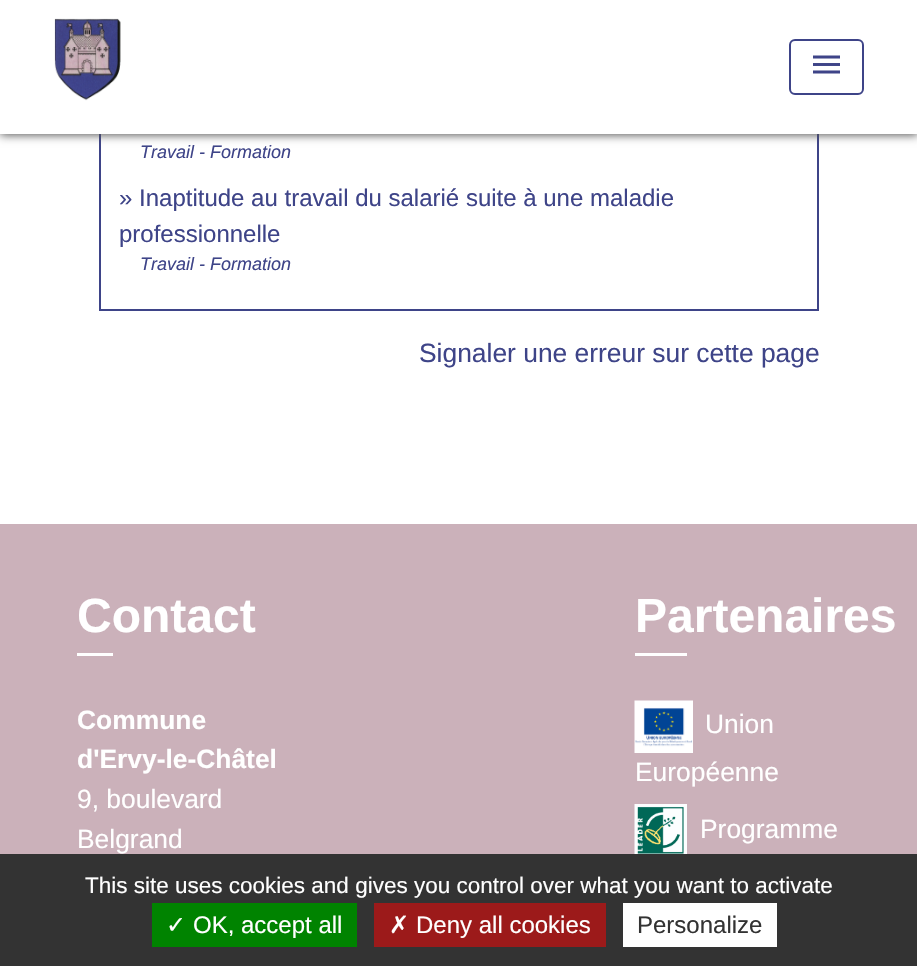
void draw(SkCanvas* canvas) {
  SkPaint paint;
  paint.setAntiAlias(true);
  auto face = [&](const char* family, int weight, float size, bool italic = false) {
    SkFontStyle style(weight, SkFontStyle::kNormal_Width,
      italic ? SkFontStyle::kItalic_Slant : SkFontStyle::kUpright_Slant);
    SkFont result(fontMgr->matchFamilyStyle(family, style), size);
    result.setSubpixel(true);
    return result;
  };
  auto paste = [&](const char* path, float x, float y, float w, float h) {
    auto image = SkImages::DeferredFromEncodedData(SkData::MakeFromFileName(path));
    canvas->drawImageRect(image, SkRect::MakeXYWH(x, y, w, h), SkSamplingOptions());
  };
  canvas->clear(0xffffffff);
  paint.setStroke(true);
  paint.setStrokeWidth(2);
  paint.setColor(0xff3e4488);
  canvas->drawRect(SkRect::MakeXYWH(100, 9, 718, 301), paint);
  paint.setStroke(false);
  paint.setColor(0xff535353);
  paint.setMaskFilter(SkMaskFilter::MakeBlur(kNormal_SkBlurStyle, 4.5f));
  canvas->drawRect(SkRect::MakeXYWH(0, 2, 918, 133), paint);
  paint.setMaskFilter(nullptr);
  paint.setColor(0xffffffff);
  canvas->drawRect(SkRect::MakeXYWH(0, 0, 917, 134), paint);
  paste("img/1.png", 54, 18, 67, 83);
  paint.setStroke(true);
  paint.setColor(0xff3e4488);
  canvas->drawRoundRect(SkRect::MakeXYWH(790, 40, 73, 54), 5, 5, paint);
  paste("img/2.png", 813, 55, 27, 19);
  paint.setStroke(false);
  {
    const struct { float x, y, w, h; SkColor color; } items[] = {
      {0, 524, 917, 330, 0xffcbb1ba},
      {77, 653, 36, 3, 0xffffffff},
      {635, 653, 52, 3, 0xffffffff},
    };
    for (auto [x, y, w, h, color] : items) {
      paint.setColor(color);
      canvas->drawRect(SkRect::MakeXYWH(x, y, w, h), paint);
    }
  }
  paste("img/3.png", 634, 700, 59, 53);
  paste("img/4.png", 634, 804, 53, 50);
  {
    const struct { float x, y, w, h; SkColor color; } items[] = {
      {0, 854, 917, 112, 0xff333333},
      {152, 903, 205, 44, 0xff008300},
      {374, 903, 232, 44, 0xff9c1a1a},
      {623, 903, 154, 44, 0xffffffff},
    };
    for (auto [x, y, w, h, color] : items) {
      paint.setColor(color);
      canvas->drawRect(SkRect::MakeXYWH(x, y, w, h), paint);
    }
  }
  auto f0 = face("Liberation Sans", 400, 18, true);
  paint.setColor(0xff3e4488);
  canvas->drawString("Travail - Formation", 140, 158, f0, paint);
  auto f1 = face("Liberation Sans", 400, 24);
  canvas->drawString("» Inaptitude au travail du salarié suite à une maladie", 119, 206, f1, paint);
  canvas->drawString("professionnelle", 119, 242, f1, paint);
  canvas->drawString("Travail - Formation", 140, 270, f0, paint);
  auto f2 = face("Liberation Sans", 400, 26.4f);
  canvas->drawString("Signaler une erreur sur cette page", 419, 362, f2, paint);
  auto f3 = face("Liberation Sans", 700, 48);
  paint.setColor(0xffffffff);
  canvas->drawString("Contact", 77, 632, f3, paint);
  auto f4 = face("Liberation Sans", 700, 26.4f);
  canvas->drawString("Commune", 77, 729, f4, paint);
  canvas->drawString("d'Ervy-le-Châtel", 77, 768, f4, paint);
  canvas->drawString("9, boulevard", 77, 808, f2, paint);
  canvas->drawString("Belgrand", 77, 848, f2, paint);
  canvas->drawString("Partenaires", 635, 632, f3, paint);
  {
    const struct { const char* s; float x, y; } items[] = {
      {"Union", 705, 733},
      {"Européenne", 635, 781},
      {"Programme", 700, 838},
    };
    for (auto [s, x, y] : items) {
      canvas->drawString(s, x, y, f2, paint);
    }
  }
  auto f5 = face("Liberation Sans", 400, 22.5f);
  canvas->drawString("This site uses cookies and gives you control over what you want to activate", 85, 893, f5, paint);
  auto f6 = face("DejaVu Sans", 400, 24);
  canvas->drawString("✓", 166, 933, f6, paint);
  canvas->drawString("OK, accept all", 193, 933, f1, paint);
  canvas->drawString("✗", 389, 933, f6, paint);
  canvas->drawString("Deny all cookies", 416, 933, f1, paint);
  paint.setColor(0xff333333);
  canvas->drawString("Personalize", 637, 933, f1, paint);
}
